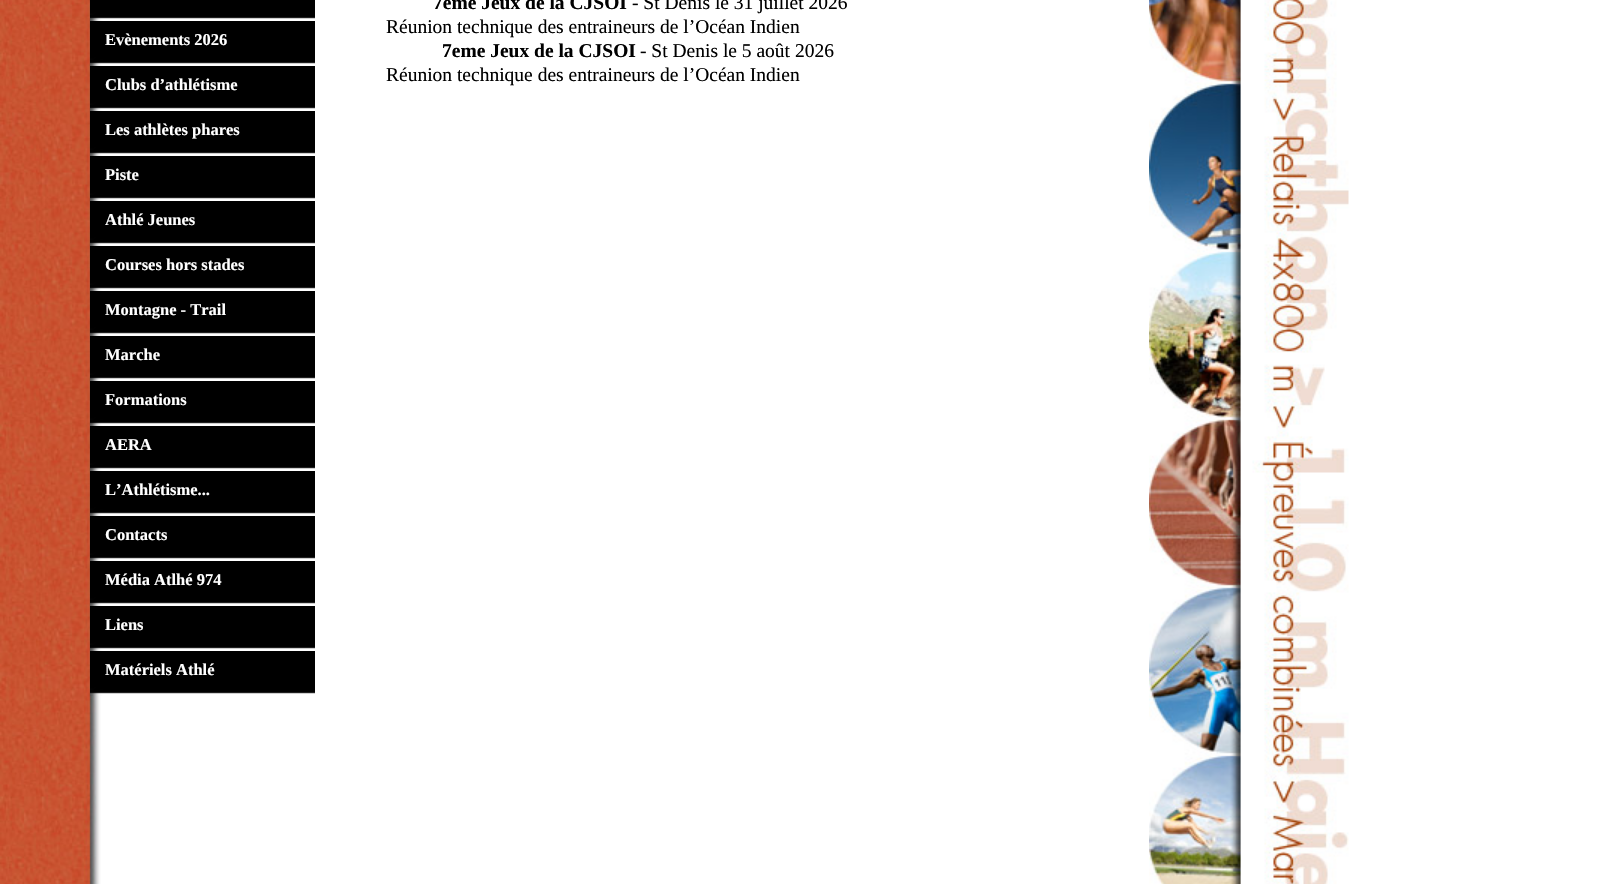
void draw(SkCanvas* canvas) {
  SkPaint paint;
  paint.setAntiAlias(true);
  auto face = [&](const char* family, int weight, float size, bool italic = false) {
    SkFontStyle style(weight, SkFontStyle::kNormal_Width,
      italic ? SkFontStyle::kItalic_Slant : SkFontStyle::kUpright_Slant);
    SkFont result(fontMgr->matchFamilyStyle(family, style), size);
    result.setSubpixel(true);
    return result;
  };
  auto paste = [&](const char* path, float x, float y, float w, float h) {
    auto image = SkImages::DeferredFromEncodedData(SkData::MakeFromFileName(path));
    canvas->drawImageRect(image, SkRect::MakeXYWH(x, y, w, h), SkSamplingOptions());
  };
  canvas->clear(0xffffffff);
  paste("img/3.png", 0, 0, 101, 884);
  paste("img/1.png", 90, 0, 225, 21);
  paste("img/2.png", 90, 21, 225, 45);
  paste("img/2.png", 90, 66, 225, 45);
  paste("img/2.png", 90, 111, 225, 45);
  paste("img/2.png", 90, 156, 225, 45);
  paste("img/2.png", 90, 201, 225, 45);
  paste("img/2.png", 90, 246, 225, 45);
  paste("img/2.png", 90, 291, 225, 45);
  paste("img/2.png", 90, 336, 225, 45);
  paste("img/2.png", 90, 381, 225, 45);
  paste("img/2.png", 90, 426, 225, 45);
  paste("img/2.png", 90, 471, 225, 45);
  paste("img/2.png", 90, 516, 225, 45);
  paste("img/2.png", 90, 561, 225, 45);
  paste("img/2.png", 90, 606, 225, 45);
  paste("img/2.png", 90, 651, 225, 45);
  paste("img/4.png", 1240, 0, 1, 884);
  paste("img/5.png", 1240, 0, 109, 884);
  paste("img/6.png", 1149, 0, 92, 884);
  auto f0 = face("Liberation Serif", 700, 16.5f);
  paint.setColor(0xffffffff);
  {
    const struct { const char* s; float x, y; } items[] = {
      {"Evènements 2026", 105, 45},
      {"Clubs d’athlétisme", 105, 90},
      {"Les athlètes phares", 105, 135},
      {"Piste", 105, 180},
      {"Athlé Jeunes", 105, 225},
      {"Courses hors stades", 105, 270},
      {"Montagne - Trail", 105, 315},
      {"Marche", 105, 360},
      {"Formations", 105, 405},
      {"AERA", 105, 450},
      {"L’Athlétisme...", 105, 495},
      {"Contacts", 105, 540},
      {"Média Atlhé 974", 105, 585},
      {"Liens", 105, 630},
      {"Matériels Athlé", 105, 675},
    };
    for (auto [s, x, y] : items) {
      canvas->drawString(s, x, y, f0, paint);
    }
  }
  auto f1 = face("Liberation Serif", 700, 19.5f);
  paint.setColor(0xff000000);
  canvas->drawString("7eme Jeux de la CJSOI", 433, 9, f1, paint);
  auto f2 = face("Liberation Serif", 400, 19.5f);
  canvas->drawString("- St Denis le 31 juillet 2026", 632, 9, f2, paint);
  canvas->drawString("Réunion technique des entraineurs de l’Océan Indien", 386, 33, f2, paint);
  canvas->drawString("7eme Jeux de la CJSOI", 442, 57, f1, paint);
  canvas->drawString("- St Denis le 5 août 2026", 640, 57, f2, paint);
  canvas->drawString("Réunion technique des entraineurs de l’Océan Indien", 386, 81, f2, paint);
}
